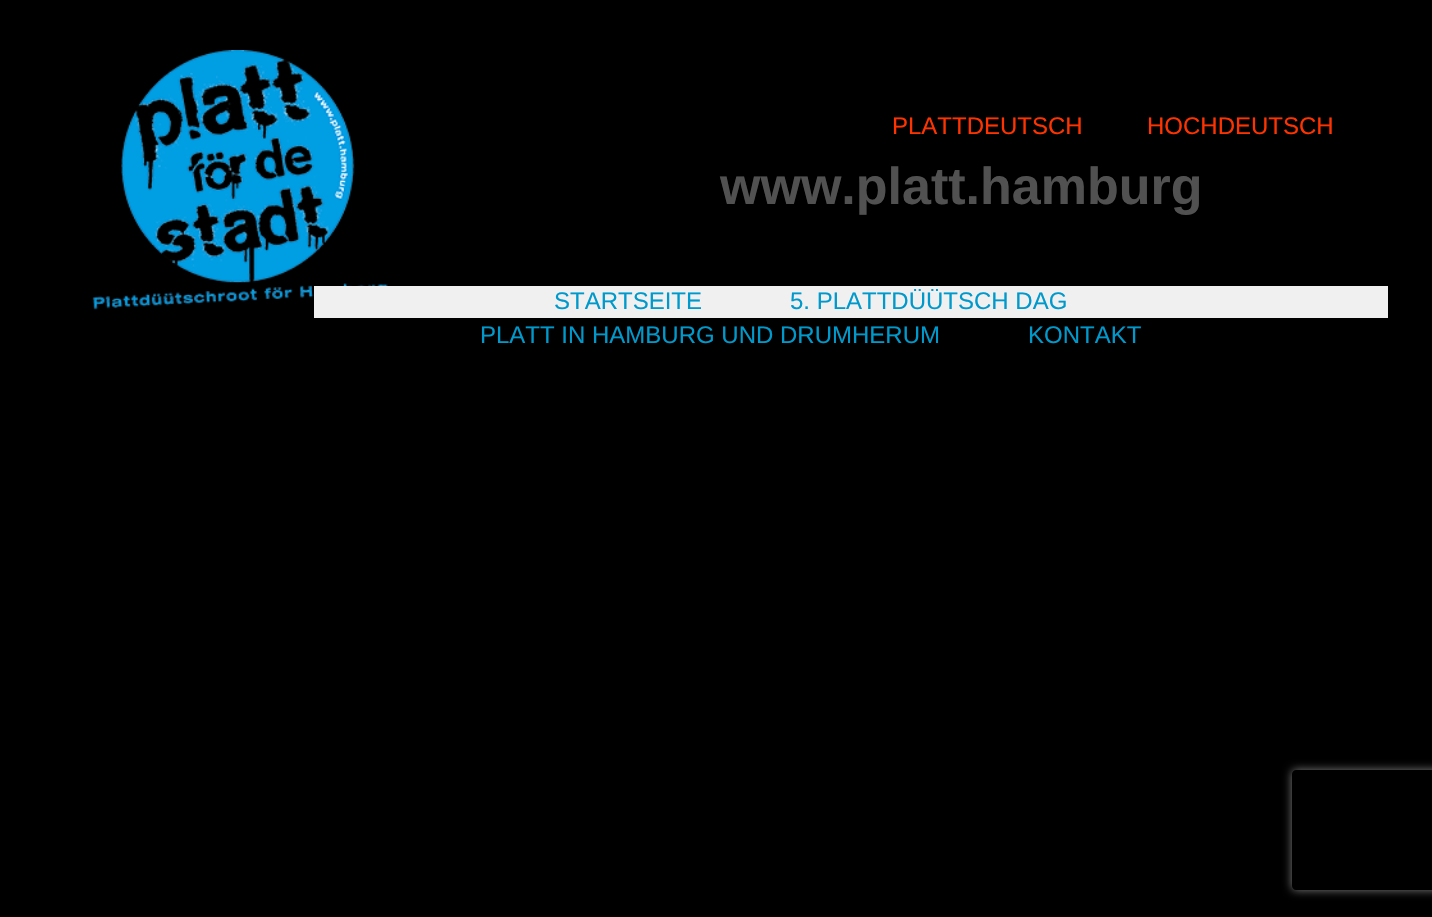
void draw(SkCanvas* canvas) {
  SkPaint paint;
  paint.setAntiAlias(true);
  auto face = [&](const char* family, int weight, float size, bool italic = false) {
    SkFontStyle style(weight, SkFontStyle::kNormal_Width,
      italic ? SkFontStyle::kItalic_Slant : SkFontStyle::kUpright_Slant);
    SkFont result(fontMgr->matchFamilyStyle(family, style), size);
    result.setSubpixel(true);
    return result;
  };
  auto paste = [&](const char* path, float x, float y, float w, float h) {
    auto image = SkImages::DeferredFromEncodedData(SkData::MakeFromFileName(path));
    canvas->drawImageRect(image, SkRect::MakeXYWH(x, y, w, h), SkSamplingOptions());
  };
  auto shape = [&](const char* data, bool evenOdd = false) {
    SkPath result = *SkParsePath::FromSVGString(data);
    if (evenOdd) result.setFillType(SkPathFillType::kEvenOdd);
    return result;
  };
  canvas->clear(0xff000000);
  paste("img/1.png", 92, 50, 296, 260);
  paint.setColor(0xfff0f0f0);
  canvas->drawRect(SkRect::MakeXYWH(314, 286, 1074, 32), paint);
  canvas->save();
  canvas->clipPath(shape("M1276 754H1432V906H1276ZM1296 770H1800C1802 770 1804 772 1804 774V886C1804 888 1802 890 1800 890H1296C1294 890 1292 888 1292 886V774C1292 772 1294 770 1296 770Z", true), true);
  paint.setColor(0xff808080);
  paint.setMaskFilter(SkMaskFilter::MakeBlur(kNormal_SkBlurStyle, 5));
  canvas->drawRoundRect(SkRect::MakeXYWH(1292, 770, 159, 120), 4, 4, paint);
  paint.setMaskFilter(nullptr);
  canvas->restore();
  auto f0 = face("Liberation Sans", 400, 24);
  paint.setColor(0xffff3300);
  canvas->drawString("PLATTDEUTSCH", 892, 134, f0, paint);
  canvas->drawString("HOCHDEUTSCH", 1147, 134, f0, paint);
  auto f1 = face("Liberation Sans", 700, 52);
  paint.setColor(0xff515151);
  canvas->drawString("www.platt.hamburg", 720, 204, f1, paint);
  paint.setColor(0xff0099cc);
  {
    const struct { const char* s; float x, y; } items[] = {
      {"STARTSEITE", 554, 309},
      {"5. PLATTDÜÜTSCH DAG", 790, 309},
      {"PLATT IN HAMBURG UND DRUMHERUM", 480, 343},
      {"KONTAKT", 1028, 343},
    };
    for (auto [s, x, y] : items) {
      canvas->drawString(s, x, y, f0, paint);
    }
  }
}
